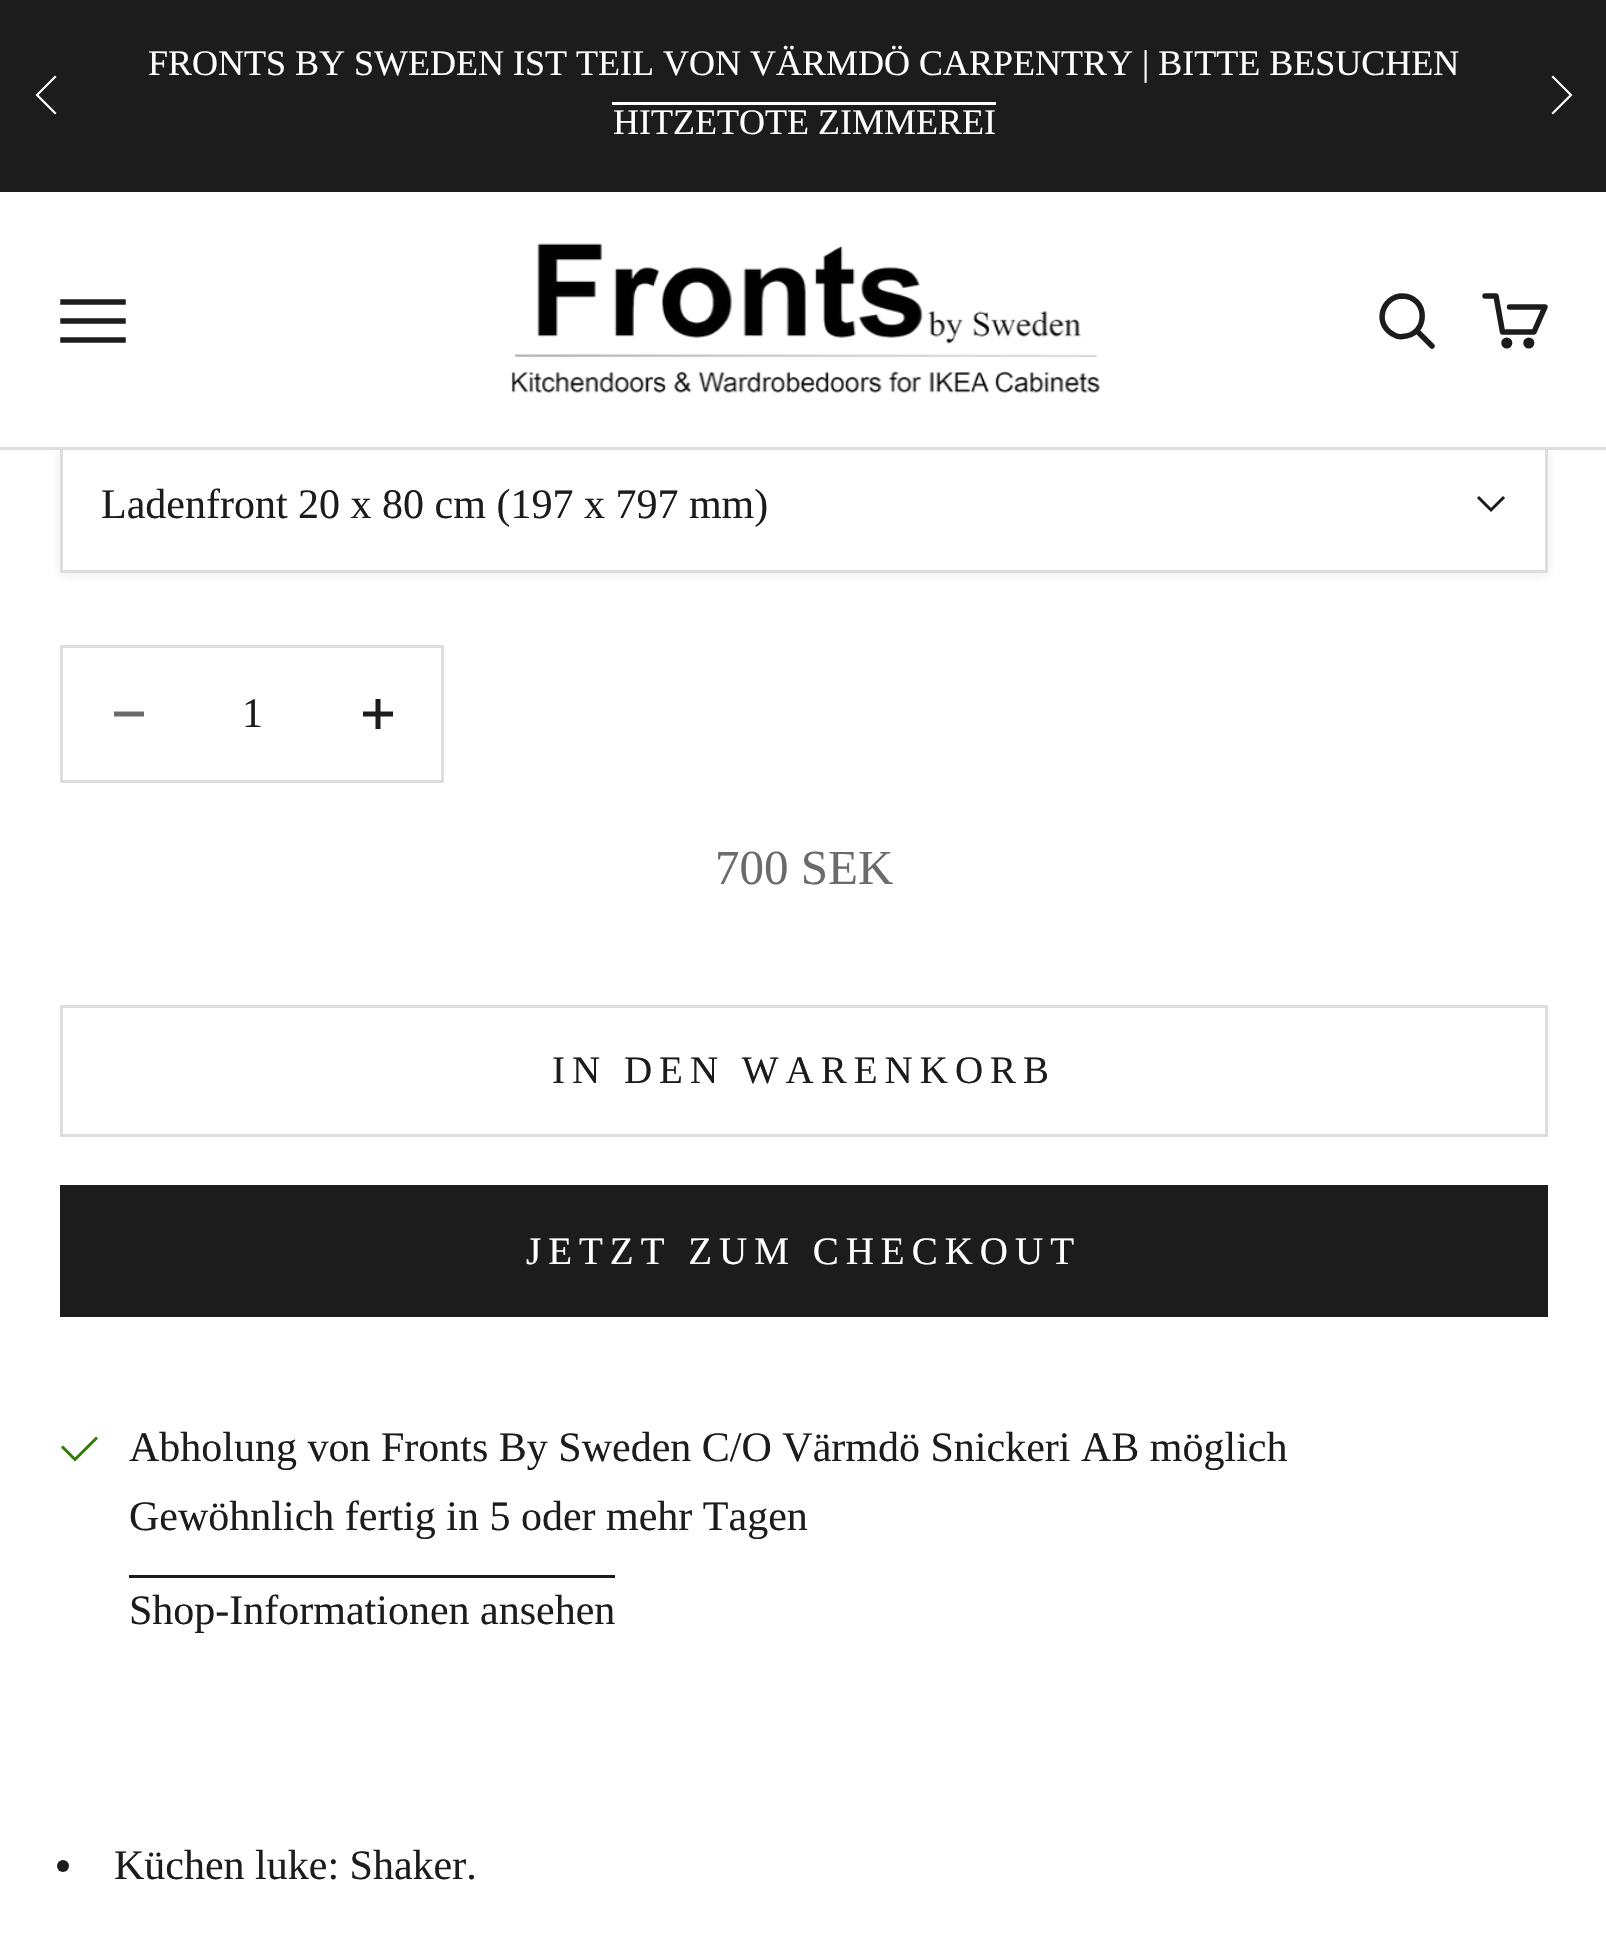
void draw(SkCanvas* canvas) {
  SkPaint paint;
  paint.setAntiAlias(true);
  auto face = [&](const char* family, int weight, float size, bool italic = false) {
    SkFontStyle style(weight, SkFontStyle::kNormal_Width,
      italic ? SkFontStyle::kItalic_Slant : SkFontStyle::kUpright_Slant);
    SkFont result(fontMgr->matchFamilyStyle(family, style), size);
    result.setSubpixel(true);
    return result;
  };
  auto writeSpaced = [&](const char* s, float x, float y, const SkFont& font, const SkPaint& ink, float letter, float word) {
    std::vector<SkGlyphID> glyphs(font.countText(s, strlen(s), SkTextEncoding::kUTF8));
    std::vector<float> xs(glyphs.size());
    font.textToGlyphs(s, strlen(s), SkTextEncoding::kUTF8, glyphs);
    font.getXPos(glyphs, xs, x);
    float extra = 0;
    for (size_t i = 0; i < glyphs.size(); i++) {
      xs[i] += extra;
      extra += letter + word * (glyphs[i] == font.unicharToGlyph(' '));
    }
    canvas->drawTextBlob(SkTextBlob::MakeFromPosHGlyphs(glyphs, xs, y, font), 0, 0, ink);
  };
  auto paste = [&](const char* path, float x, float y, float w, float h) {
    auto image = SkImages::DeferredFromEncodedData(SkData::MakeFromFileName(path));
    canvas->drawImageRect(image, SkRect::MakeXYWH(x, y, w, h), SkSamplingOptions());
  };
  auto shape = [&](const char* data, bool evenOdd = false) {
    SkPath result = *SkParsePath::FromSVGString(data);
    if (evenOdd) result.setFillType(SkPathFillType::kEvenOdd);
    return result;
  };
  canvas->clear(0xffffffff);
  paint.setColor(0xff1c1c1c);
  canvas->drawRect(SkRect::MakeXYWH(0, 0, 1606, 192), paint);
  paint.setStroke(true);
  paint.setStrokeWidth(2.2f);
  paint.setStrokeCap(SkPaint::kSquare_Cap);
  paint.setColor(0xffffffff);
  canvas->drawPath(shape("M55 77L37 95L55 113"), paint);
  paint.setStroke(false);
  canvas->drawRect(SkRect::MakeXYWH(612, 102, 384, 3), paint);
  paint.setStroke(true);
  canvas->drawPath(shape("M1553 113L1571 95L1553 77"), paint);
  canvas->save();
  canvas->clipPath(shape("M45 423H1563V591H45ZM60 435H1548V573H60Z", true), true);
  paint.setStroke(false);
  paint.setColor(0x141c1c1c);
  paint.setMaskFilter(SkMaskFilter::MakeBlur(kNormal_SkBlurStyle, 4.5f));
  canvas->drawRect(SkRect::MakeXYWH(60, 438, 1488, 138), paint);
  paint.setMaskFilter(nullptr);
  canvas->restore();
  paint.setStroke(true);
  paint.setStrokeWidth(3);
  paint.setStrokeCap(SkPaint::kButt_Cap);
  paint.setColor(0xffdddddd);
  canvas->drawRect(SkRect::MakeXYWH(61.5f, 436.5f, 1485, 135), paint);
  paint.setStroke(false);
  paint.setColor(0xffffffff);
  canvas->drawRect(SkRect::MakeXYWH(55, 433, 1498, 14), paint);
  paint.setColor(0xffdddddd);
  canvas->drawRect(SkRect::MakeXYWH(0, 447, 1606, 3), paint);
  paint.setStroke(true);
  paint.setStrokeWidth(5.5f);
  paint.setStrokeCap(SkPaint::kSquare_Cap);
  paint.setColor(0xff1c1c1c);
  canvas->drawPath(shape("M63 340H123M63 321H123M63 302H123"), paint);
  paste("img/1.png", 511, 243, 589, 150);
  paint.setStrokeCap(SkPaint::kButt_Cap);
  canvas->drawPath(shape("M1402.5 296C1382 296 1374 324 1392.5 334C1395.5 336 1399 337 1402.5 336.5C1429 335.5 1428.5 296.5 1402.5 296Z"), paint);
  paint.setStrokeCap(SkPaint::kRound_Cap);
  canvas->drawPath(shape("M1417.5 331.5L1432 346"), paint);
  paint.setStrokeJoin(SkPaint::kRound_Join);
  canvas->drawPath(shape("M1509.5 307H1545L1534 332H1502.5L1496 296H1485"), paint);
  paint.setStrokeCap(SkPaint::kButt_Cap);
  paint.setStrokeJoin(SkPaint::kMiter_Join);
  canvas->drawCircle(1506.8f, 343, 2.8f, paint);
  canvas->drawCircle(1528.8f, 343, 2.8f, paint);
  paint.setStrokeWidth(3);
  paint.setStrokeCap(SkPaint::kSquare_Cap);
  canvas->drawPath(shape("M1479 498L1491 510L1503 498"), paint);
  paint.setStrokeCap(SkPaint::kButt_Cap);
  paint.setColor(0xffdddddd);
  canvas->drawRect(SkRect::MakeXYWH(61.5f, 646.5f, 381, 135), paint);
  paint.setStrokeWidth(5);
  paint.setColor(0xff6b6b6b);
  canvas->drawPath(shape("M114 714H144"), paint);
  paint.setColor(0xff1c1c1c);
  canvas->drawPath(shape("M378 699V729M363 714H393"), paint);
  paint.setStrokeWidth(3);
  paint.setColor(0xffdddddd);
  canvas->drawRect(SkRect::MakeXYWH(61.5f, 1006.5f, 1485, 129), paint);
  paint.setStroke(false);
  paint.setColor(0xff1c1c1c);
  canvas->drawRect(SkRect::MakeXYWH(61.5f, 1186.5f, 1485, 129), paint);
  paint.setStroke(true);
  canvas->drawRect(SkRect::MakeXYWH(61.5f, 1186.5f, 1485, 129), paint);
  paint.setStrokeCap(SkPaint::kSquare_Cap);
  paint.setColor(0xff307a07);
  canvas->drawPath(shape("M63 1447.5L75 1459.5L96 1438.5"), paint);
  paint.setStroke(false);
  paint.setColor(0xff1c1c1c);
  canvas->drawRect(SkRect::MakeXYWH(129, 1575, 486, 3), paint);
  canvas->drawCircle(63, 1866, 6, paint);
  auto f0 = face("Liberation Serif", 400, 36);
  paint.setColor(0xffffffff);
  canvas->drawString("FRONTS BY SWEDEN IST TEIL VON VÄRMDÖ CARPENTRY | BITTE BESUCHEN", 148, 75, f0, paint);
  canvas->drawString("HITZETOTE ZIMMEREI", 613, 134, f0, paint);
  auto f1 = face("Liberation Serif", 400, 42);
  paint.setColor(0xff1c1c1c);
  canvas->drawString("Ladenfront 20 x 80 cm (197 x 797 mm)", 101, 518, f1, paint);
  canvas->drawString("1", 242, 727, f1, paint);
  auto f2 = face("Liberation Serif", 400, 49);
  paint.setColor(0xff6b6b6b);
  canvas->drawString("700 SEK", 715, 884, f2, paint);
  auto f3 = face("Liberation Serif", 400, 39);
  paint.setColor(0xff1c1c1c);
  writeSpaced("IN DEN WARENKORB", 552, 1083, f3, paint, 7, 0);
  paint.setColor(0xffffffff);
  writeSpaced("JETZT ZUM CHECKOUT", 526, 1264, f3, paint, 7, 0);
  paint.setColor(0xff1c1c1c);
  {
    const struct { const char* s; float x, y; } items[] = {
      {"Abholung von Fronts By Sweden C/O Värmdö Snickeri AB möglich", 129, 1461},
      {"Gewöhnlich fertig in 5 oder mehr Tagen", 129, 1530},
      {"Shop-Informationen ansehen", 129, 1624},
      {"Küchen luke: Shaker.", 114, 1879},
    };
    for (auto [s, x, y] : items) {
      canvas->drawString(s, x, y, f1, paint);
    }
  }
}
